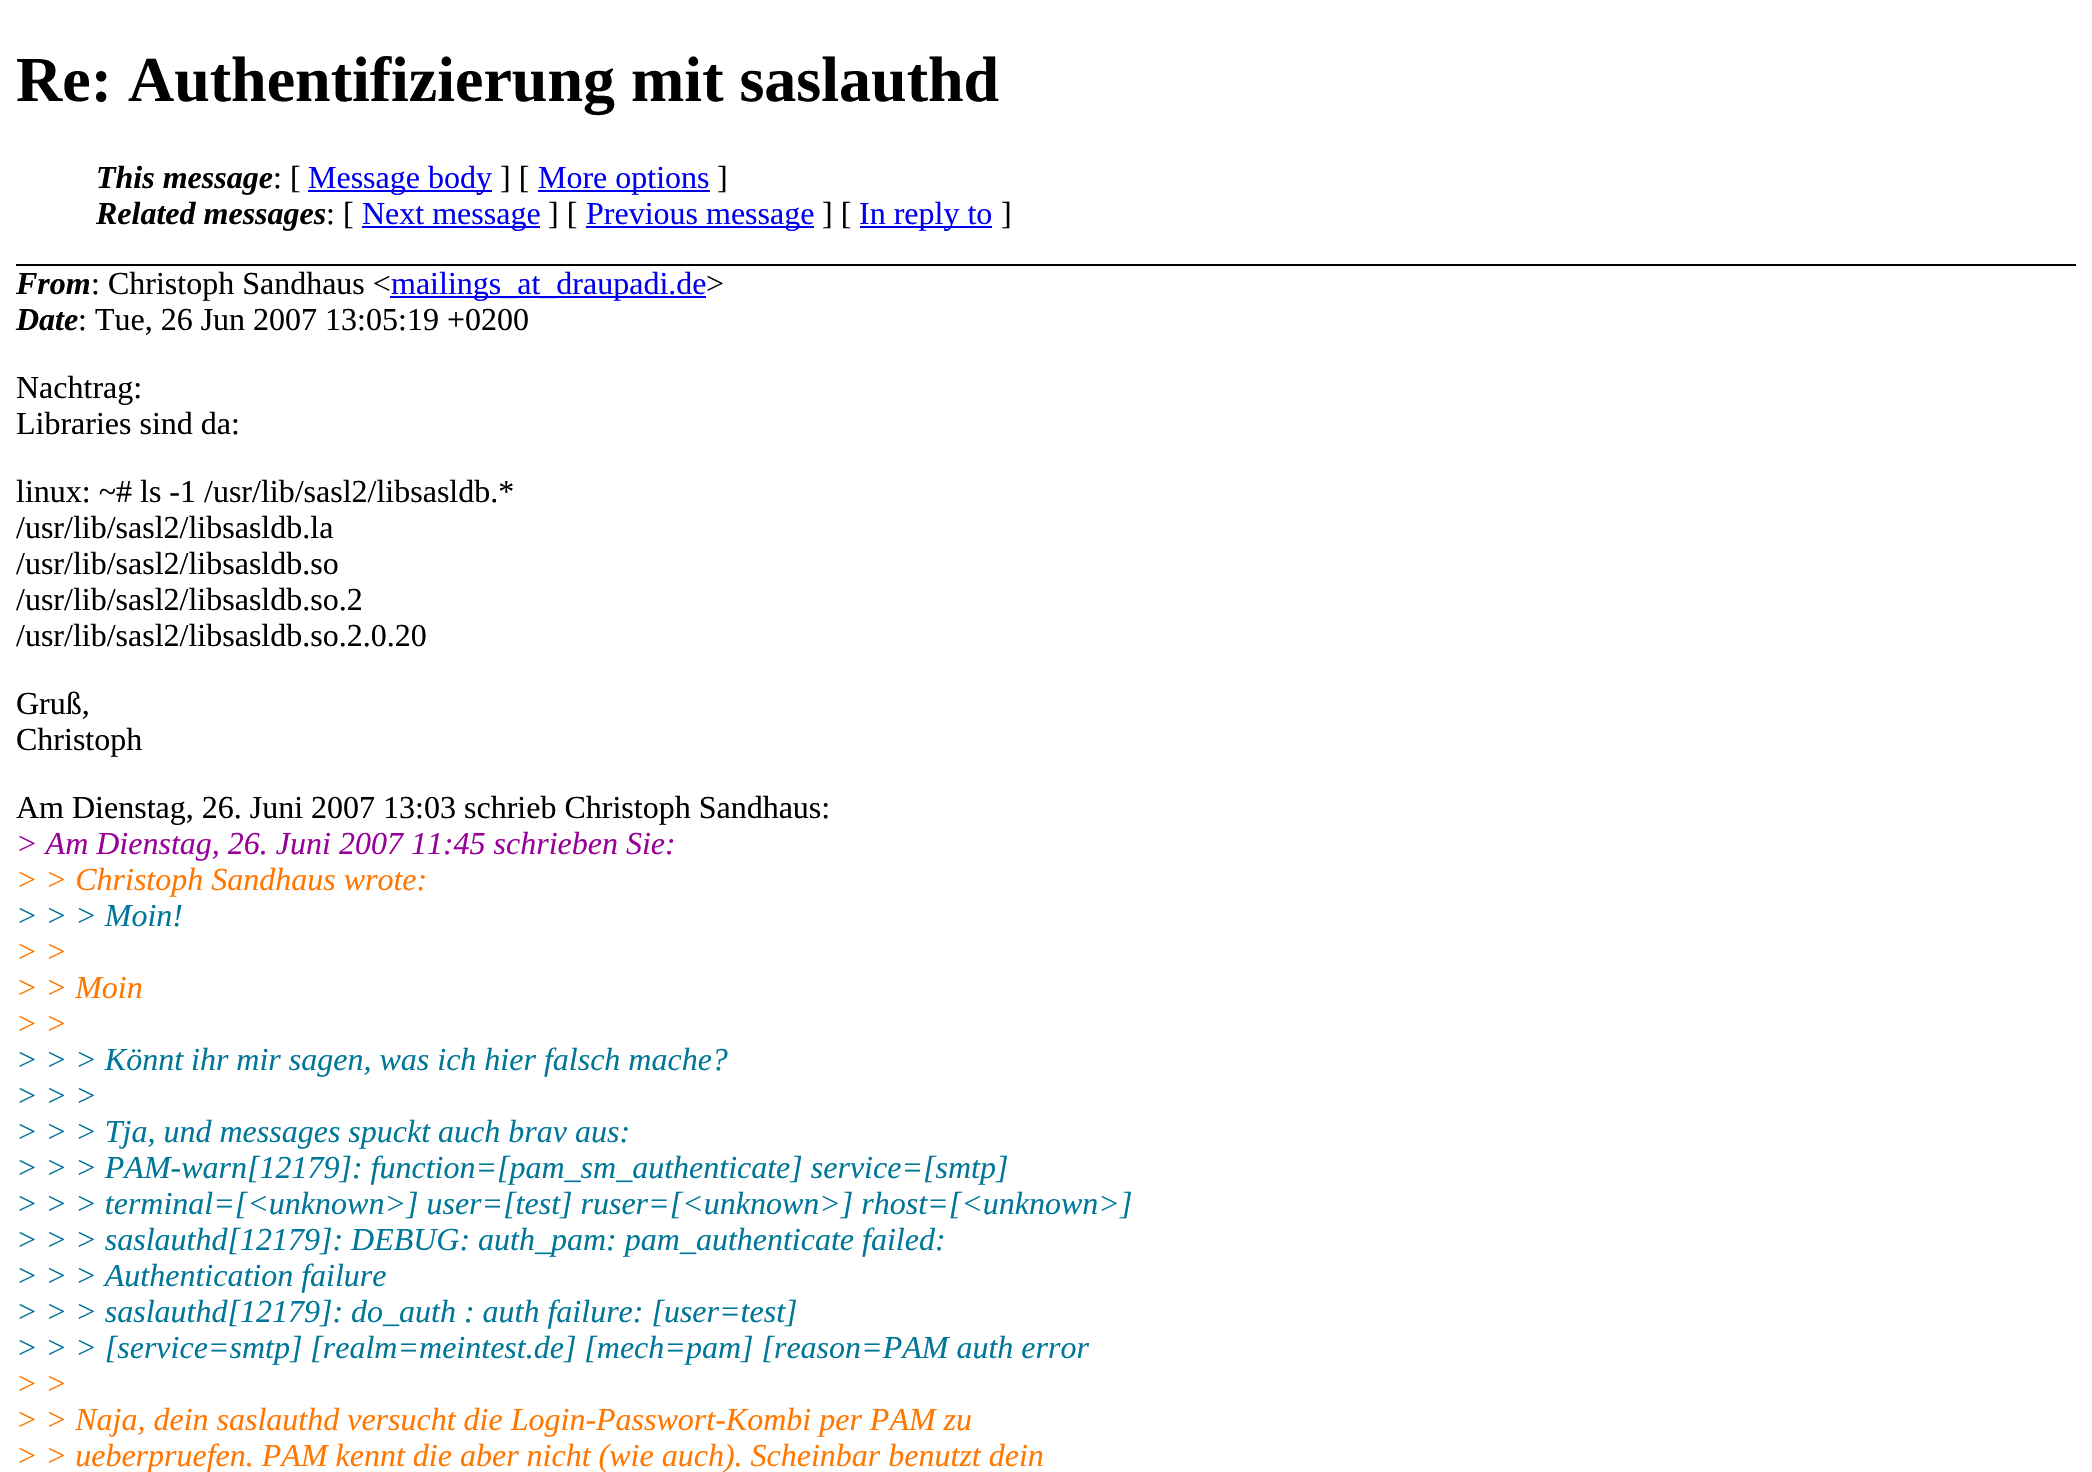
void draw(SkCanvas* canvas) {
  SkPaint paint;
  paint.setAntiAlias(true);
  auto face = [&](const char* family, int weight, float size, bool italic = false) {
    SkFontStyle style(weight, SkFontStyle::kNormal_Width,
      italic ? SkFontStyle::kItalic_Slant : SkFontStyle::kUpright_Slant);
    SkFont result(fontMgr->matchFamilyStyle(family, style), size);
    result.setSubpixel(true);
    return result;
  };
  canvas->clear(0xffffffff);
  {
    const struct { float x, y, w, h; SkColor color; } items[] = {
      {16, 264, 2060, 2, 0xff000000},
      {308, 190, 184, 2, 0xff0000ee},
      {538, 190, 172, 2, 0xff0000ee},
      {362, 226, 178, 2, 0xff0000ee},
      {586, 226, 228, 2, 0xff0000ee},
      {860, 226, 132, 2, 0xff0000ee},
      {390, 296, 316, 2, 0xff0000ee},
    };
    for (auto [x, y, w, h, color] : items) {
      paint.setColor(color);
      canvas->drawRect(SkRect::MakeXYWH(x, y, w, h), paint);
    }
  }
  auto f0 = face("Liberation Serif", 700, 64);
  paint.setColor(0xff000000);
  canvas->drawString("Re: Authentifizierung mit saslauthd", 16, 101, f0, paint);
  auto f1 = face("Liberation Serif", 700, 32, true);
  canvas->drawString("This message", 96, 188, f1, paint);
  auto f2 = face("Liberation Serif", 400, 32);
  canvas->drawString(": [", 273, 188, f2, paint);
  paint.setColor(0xff0000ee);
  canvas->drawString("Message body", 308, 188, f2, paint);
  paint.setColor(0xff000000);
  canvas->drawString("] [", 500, 188, f2, paint);
  paint.setColor(0xff0000ee);
  canvas->drawString("More options", 538, 188, f2, paint);
  paint.setColor(0xff000000);
  canvas->drawString("]", 717, 188, f2, paint);
  canvas->drawString("Related messages", 96, 224, f1, paint);
  canvas->drawString(": [", 326, 224, f2, paint);
  paint.setColor(0xff0000ee);
  canvas->drawString("Next message", 362, 224, f2, paint);
  paint.setColor(0xff000000);
  canvas->drawString("] [", 548, 224, f2, paint);
  paint.setColor(0xff0000ee);
  canvas->drawString("Previous message", 586, 224, f2, paint);
  paint.setColor(0xff000000);
  canvas->drawString("] [", 822, 224, f2, paint);
  paint.setColor(0xff0000ee);
  canvas->drawString("In reply to", 859, 224, f2, paint);
  paint.setColor(0xff000000);
  canvas->drawString("]", 1001, 224, f2, paint);
  canvas->drawString("From", 16, 294, f1, paint);
  canvas->drawString(": Christoph Sandhaus <", 91, 294, f2, paint);
  paint.setColor(0xff0000ee);
  canvas->drawString("mailings_at_draupadi.de", 391, 294, f2, paint);
  paint.setColor(0xff000000);
  canvas->drawString(">", 706, 294, f2, paint);
  canvas->drawString("Date", 16, 330, f1, paint);
  {
    const struct { const char* s; float x, y; } items[] = {
      {": Tue, 26 Jun 2007 13:05:19 +0200", 78, 330},
      {"Nachtrag:", 16, 398},
      {"Libraries sind da:", 16, 434},
      {"linux: ~# ls -1 /usr/lib/sasl2/libsasldb.*", 16, 502},
      {"/usr/lib/sasl2/libsasldb.la", 16, 538},
      {"/usr/lib/sasl2/libsasldb.so", 16, 574},
      {"/usr/lib/sasl2/libsasldb.so.2", 16, 610},
      {"/usr/lib/sasl2/libsasldb.so.2.0.20", 16, 646},
      {"Gruß,", 16, 714},
      {"Christoph", 16, 750},
      {"Am Dienstag, 26. Juni 2007 13:03 schrieb Christoph Sandhaus:", 16, 818},
    };
    for (auto [s, x, y] : items) {
      canvas->drawString(s, x, y, f2, paint);
    }
  }
  auto f3 = face("Liberation Serif", 400, 32, true);
  paint.setColor(0xff990099);
  canvas->drawString("> Am Dienstag, 26. Juni 2007 11:45 schrieben Sie:", 16, 854, f3, paint);
  paint.setColor(0xffff7700);
  canvas->drawString("> > Christoph Sandhaus wrote:", 16, 890, f3, paint);
  paint.setColor(0xff007799);
  canvas->drawString("> > > Moin!", 16, 926, f3, paint);
  paint.setColor(0xffff7700);
  {
    const struct { const char* s; float x, y; } items[] = {
      {"> >", 16, 962},
      {"> > Moin", 16, 998},
      {"> >", 16, 1034},
    };
    for (auto [s, x, y] : items) {
      canvas->drawString(s, x, y, f3, paint);
    }
  }
  paint.setColor(0xff007799);
  {
    const struct { const char* s; float x, y; } items[] = {
      {"> > > Könnt ihr mir sagen, was ich hier falsch mache?", 16, 1070},
      {"> > >", 16, 1106},
      {"> > > Tja, und messages spuckt auch brav aus:", 16, 1142},
      {"> > > PAM-warn[12179]: function=[pam_sm_authenticate] service=[smtp]", 16, 1178},
      {"> > > terminal=[<unknown>] user=[test] ruser=[<unknown>] rhost=[<unknown>]", 16, 1214},
      {"> > > saslauthd[12179]: DEBUG: auth_pam: pam_authenticate failed:", 16, 1250},
      {"> > > Authentication failure", 16, 1286},
      {"> > > saslauthd[12179]: do_auth : auth failure: [user=test]", 16, 1322},
      {"> > > [service=smtp] [realm=meintest.de] [mech=pam] [reason=PAM auth error", 16, 1358},
    };
    for (auto [s, x, y] : items) {
      canvas->drawString(s, x, y, f3, paint);
    }
  }
  paint.setColor(0xffff7700);
  {
    const struct { const char* s; float x, y; } items[] = {
      {"> >", 16, 1394},
      {"> > Naja, dein saslauthd versucht die Login-Passwort-Kombi per PAM zu", 16, 1430},
      {"> > ueberpruefen. PAM kennt die aber nicht (wie auch). Scheinbar benutzt dein", 16, 1466},
    };
    for (auto [s, x, y] : items) {
      canvas->drawString(s, x, y, f3, paint);
    }
  }
}
